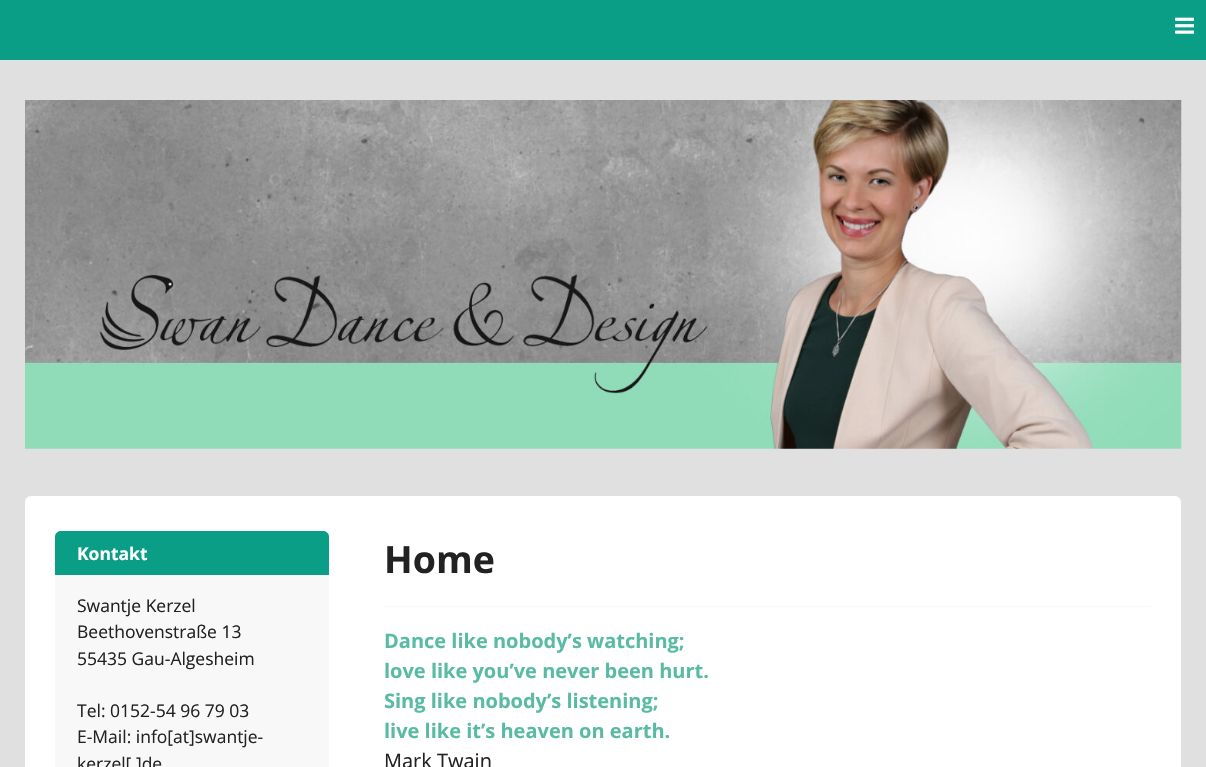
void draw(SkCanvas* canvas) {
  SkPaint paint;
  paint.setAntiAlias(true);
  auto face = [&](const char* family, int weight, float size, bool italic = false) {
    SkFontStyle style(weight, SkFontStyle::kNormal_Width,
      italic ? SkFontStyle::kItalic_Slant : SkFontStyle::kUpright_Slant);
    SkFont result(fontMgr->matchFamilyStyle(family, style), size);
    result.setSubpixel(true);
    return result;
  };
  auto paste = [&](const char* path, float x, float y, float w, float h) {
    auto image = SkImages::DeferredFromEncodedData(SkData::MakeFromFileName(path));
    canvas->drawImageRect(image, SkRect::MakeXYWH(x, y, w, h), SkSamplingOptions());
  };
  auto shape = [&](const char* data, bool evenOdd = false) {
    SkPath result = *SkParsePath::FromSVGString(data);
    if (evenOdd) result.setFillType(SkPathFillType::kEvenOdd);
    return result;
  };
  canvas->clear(0xffe0e0e0);
  paint.setColor(0xff099e85);
  canvas->drawRect(SkRect::MakeXYWH(0, 0, 1206, 60), paint);
  paste("img/1.png", 1175, 17, 19, 17);
  paste("img/2.png", 25, 100, 1157, 349);
  paint.setColor(0xffffffff);
  canvas->drawRoundRect(SkRect::MakeXYWH(25, 496, 1156, 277), 6, 6, paint);
  paint.setColor(0xfff8f8f8);
  canvas->drawRoundRect(SkRect::MakeXYWH(55, 531, 274, 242), 6, 6, paint);
  paint.setColor(0xff099e85);
  canvas->drawPath(shape("M61 531H323C326.5 531 329 533.5 329 537V575H55V537C55 533.5 57.5 531 61 531Z"), paint);
  paint.setColor(0xfff8f8f8);
  canvas->drawRect(SkRect::MakeXYWH(384, 606, 767, 1), paint);
  auto f0 = face("Open Sans", 700, 17.5f);
  paint.setColor(0xffffffff);
  canvas->drawString("Kontakt", 77, 560, f0, paint);
  auto f1 = face("Open Sans", 400, 17.5f);
  paint.setColor(0xff222222);
  {
    const struct { const char* s; float x, y; } items[] = {
      {"Swantje Kerzel", 77, 612},
      {"Beethovenstraße 13", 77, 638},
      {"55435 Gau-Algesheim", 77, 665},
      {"Tel: 0152-54 96 79 03", 77, 717},
      {"E-Mail: info[at]swantje-", 77, 743},
      {"kerzel[.]de", 77, 770},
    };
    for (auto [s, x, y] : items) {
      canvas->drawString(s, x, y, f1, paint);
    }
  }
  auto f2 = face("Open Sans", 700, 37.5f);
  canvas->drawString("Home", 384, 573, f2, paint);
  auto f3 = face("Open Sans", 700, 20);
  paint.setColor(0xff5abba4);
  {
    const struct { const char* s; float x, y; } items[] = {
      {"Dance like nobody’s watching;", 384, 648},
      {"love like you’ve never been hurt.", 384, 678},
      {"Sing like nobody’s listening;", 384, 708},
      {"live like it’s heaven on earth.", 384, 738},
    };
    for (auto [s, x, y] : items) {
      canvas->drawString(s, x, y, f3, paint);
    }
  }
  auto f4 = face("Open Sans", 400, 20);
  paint.setColor(0xff222222);
  canvas->drawString("Mark Twain", 384, 768, f4, paint);
}
